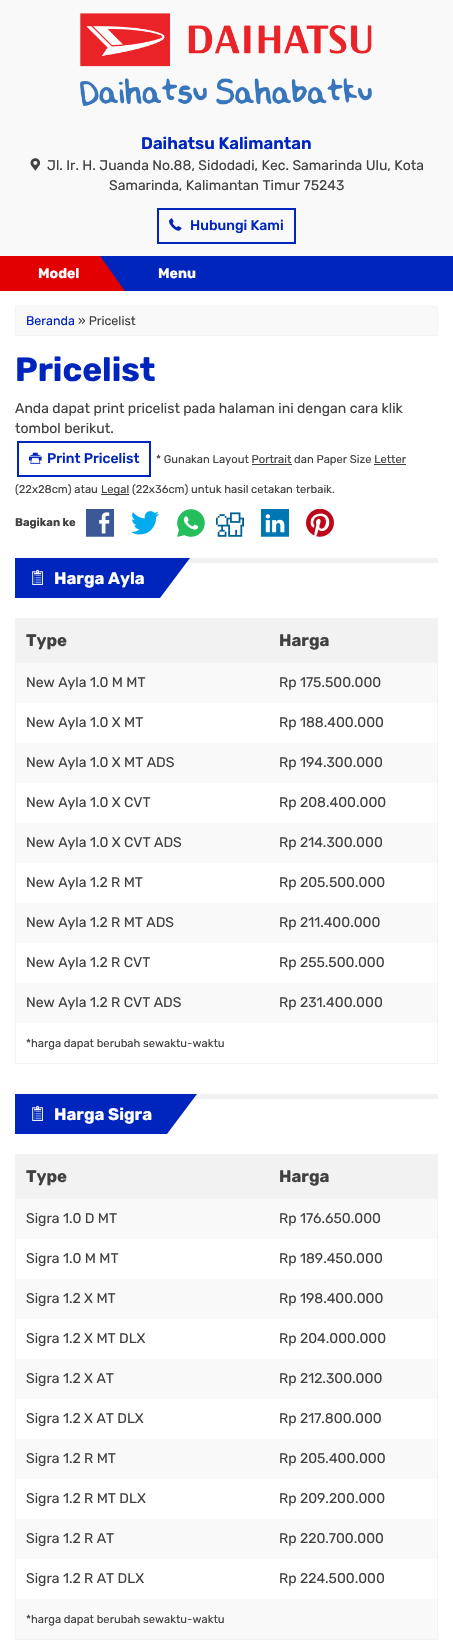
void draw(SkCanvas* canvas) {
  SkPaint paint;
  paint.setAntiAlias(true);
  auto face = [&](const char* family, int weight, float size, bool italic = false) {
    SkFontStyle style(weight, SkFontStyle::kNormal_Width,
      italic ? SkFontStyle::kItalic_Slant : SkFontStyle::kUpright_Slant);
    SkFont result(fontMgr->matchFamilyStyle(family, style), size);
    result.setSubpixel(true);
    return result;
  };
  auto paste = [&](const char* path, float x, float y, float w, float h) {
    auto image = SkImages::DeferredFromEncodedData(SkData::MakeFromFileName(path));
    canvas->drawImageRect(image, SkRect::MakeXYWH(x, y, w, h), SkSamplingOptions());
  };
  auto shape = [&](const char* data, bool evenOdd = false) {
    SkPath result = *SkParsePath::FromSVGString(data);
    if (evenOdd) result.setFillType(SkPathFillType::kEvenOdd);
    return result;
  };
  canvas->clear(0xffffffff);
  paint.setColor(0xfff9f9f9);
  canvas->drawRect(SkRect::MakeXYWH(0, 0, 453, 256), paint);
  paste("img/1.png", 80, 13, 292, 93);
  paste("img/2.png", 30, 158, 10, 13);
  paint.setStroke(true);
  paint.setStrokeWidth(2);
  paint.setColor(0xff0025bc);
  canvas->drawRect(SkRect::MakeXYWH(158, 209, 137, 34), paint);
  paste("img/3.png", 169, 218, 13, 13);
  paint.setStroke(false);
  canvas->drawRect(SkRect::MakeXYWH(100, 256, 353, 35), paint);
  paint.setColor(0xffe20000);
  canvas->drawRect(SkRect::MakeXYWH(0, 256, 100, 35), paint);
  canvas->drawPath(shape("M100 291V256L125 291Z"), paint);
  paint.setColor(0xfff9f9f9);
  canvas->drawRect(SkRect::MakeXYWH(15.5f, 306.5f, 422, 29), paint);
  paint.setStroke(true);
  paint.setStrokeWidth(1);
  paint.setColor(0xfff3f3f3);
  canvas->drawRect(SkRect::MakeXYWH(15.5f, 306.5f, 422, 29), paint);
  paint.setStrokeWidth(2);
  paint.setColor(0xff0025bc);
  canvas->drawRect(SkRect::MakeXYWH(18, 442, 132, 34), paint);
  paste("img/4.png", 29, 452, 13, 12);
  paint.setStroke(false);
  {
    const struct { float x, y, w, h; SkColor color; } items[] = {
      {252, 464, 40, 1, 0xff414141},
      {374, 464, 32, 1, 0xff414141},
      {101, 494, 28, 1, 0xff414141},
    };
    for (auto [x, y, w, h, color] : items) {
      paint.setColor(color);
      canvas->drawRect(SkRect::MakeXYWH(x, y, w, h), paint);
    }
  }
  paste("img/5.png", 86, 509, 28, 28);
  paste("img/6.png", 131, 511, 28, 24);
  paste("img/7.png", 177, 509, 28, 28);
  paste("img/8.png", 216, 512, 28, 25);
  paste("img/9.png", 261, 509, 28, 28);
  paste("img/10.png", 306, 509, 28, 28);
  paint.setColor(0xfff1f1f1);
  canvas->drawRect(SkRect::MakeXYWH(186, 558, 252, 5), paint);
  paint.setColor(0xff0025bc);
  canvas->drawRect(SkRect::MakeXYWH(15, 558, 145, 40), paint);
  paste("img/11.png", 32, 569, 11, 16);
  canvas->drawPath(shape("M160 598V558H190Z"), paint);
  {
    const struct { float x, y, w, h; SkColor color; } items[] = {
      {15, 618, 423, 1, 0xfff2f2f2},
      {437, 618, 1, 446, 0xfff2f2f2},
      {15, 1063, 423, 1, 0xfff2f2f2},
      {15, 618, 1, 446, 0xfff2f2f2},
      {16, 619, 421, 44, 0xfff2f2f2},
      {16, 663, 421, 40, 0xfff9f9f9},
      {16, 743, 421, 40, 0xfff9f9f9},
      {16, 823, 421, 40, 0xfff9f9f9},
      {16, 903, 421, 40, 0xfff9f9f9},
      {16, 983, 421, 40, 0xfff9f9f9},
      {193, 1094, 245, 5, 0xfff1f1f1},
      {15, 1094, 152, 40, 0xff0025bc},
    };
    for (auto [x, y, w, h, color] : items) {
      paint.setColor(color);
      canvas->drawRect(SkRect::MakeXYWH(x, y, w, h), paint);
    }
  }
  paste("img/11.png", 32, 1105, 11, 16);
  canvas->drawPath(shape("M167 1134V1094H197Z"), paint);
  {
    const struct { float x, y, w, h; SkColor color; } items[] = {
      {15, 1154, 423, 1, 0xfff2f2f2},
      {437, 1154, 1, 486, 0xfff2f2f2},
      {15, 1639, 423, 1, 0xfff2f2f2},
      {15, 1154, 1, 486, 0xfff2f2f2},
      {16, 1155, 421, 44, 0xfff2f2f2},
      {16, 1199, 421, 40, 0xfff9f9f9},
      {16, 1279, 421, 40, 0xfff9f9f9},
      {16, 1359, 421, 40, 0xfff9f9f9},
      {16, 1439, 421, 40, 0xfff9f9f9},
      {16, 1519, 421, 40, 0xfff9f9f9},
      {16, 1599, 421, 40, 0xfff9f9f9},
    };
    for (auto [x, y, w, h, color] : items) {
      paint.setColor(color);
      canvas->drawRect(SkRect::MakeXYWH(x, y, w, h), paint);
    }
  }
  auto f0 = face("Rubik", 600, 16.75f);
  paint.setColor(0xff0025bc);
  canvas->drawString("Daihatsu Kalimantan", 141, 149, f0, paint);
  auto f1 = face("Rubik", 400, 14);
  paint.setColor(0xff414141);
  canvas->drawString("Jl. Ir. H. Juanda No.88, Sidodadi, Kec. Samarinda Ulu, Kota", 47, 170, f1, paint);
  canvas->drawString("Samarinda, Kalimantan Timur 75243", 109, 190, f1, paint);
  auto f2 = face("Rubik", 500, 14);
  paint.setColor(0xff0025bc);
  canvas->drawString("Hubungi Kami", 190, 230, f2, paint);
  auto f3 = face("Rubik", 700, 14);
  paint.setColor(0xffffffff);
  canvas->drawString("Model", 38, 278, f3, paint);
  canvas->drawString("Menu", 158, 278, f3, paint);
  auto f4 = face("Rubik", 400, 12.5f);
  paint.setColor(0xff0025bc);
  canvas->drawString("Beranda", 26, 325, f4, paint);
  paint.setColor(0xff414141);
  canvas->drawString("» Pricelist", 78, 325, f4, paint);
  auto f5 = face("Rubik", 700, 33.5f);
  paint.setColor(0xff0025bc);
  canvas->drawString("Pricelist", 15, 381, f5, paint);
  paint.setColor(0xff414141);
  canvas->drawString("Anda dapat print pricelist pada halaman ini dengan cara klik", 15, 413, f1, paint);
  canvas->drawString("tombol berikut.", 15, 433, f1, paint);
  paint.setColor(0xff0025bc);
  canvas->drawString("Print Pricelist", 47, 463, f2, paint);
  auto f6 = face("Rubik", 400, 11.2f);
  paint.setColor(0xff414141);
  {
    const struct { const char* s; float x, y; } items[] = {
      {"* Gunakan Layout Portrait dan Paper Size Letter", 156, 463},
      {"(22x28cm) atau", 15, 493},
      {"Legal (22x36cm) untuk hasil cetakan terbaik.", 101, 493},
    };
    for (auto [s, x, y] : items) {
      canvas->drawString(s, x, y, f6, paint);
    }
  }
  auto f7 = face("Rubik", 700, 11.2f);
  canvas->drawString("Bagikan ke", 15, 526, f7, paint);
  auto f8 = face("Rubik", 700, 16.75f);
  paint.setColor(0xffffffff);
  canvas->drawString("Harga Ayla", 54, 584, f8, paint);
  paint.setColor(0xff414141);
  canvas->drawString("Type", 26, 646, f8, paint);
  canvas->drawString("Harga", 279, 646, f8, paint);
  {
    const struct { const char* s; float x, y; } items[] = {
      {"New Ayla 1.0 M MT", 26, 687},
      {"Rp 175.500.000", 279, 687},
      {"New Ayla 1.0 X MT", 26, 727},
      {"Rp 188.400.000", 279, 727},
      {"New Ayla 1.0 X MT ADS", 26, 767},
      {"Rp 194.300.000", 279, 767},
      {"New Ayla 1.0 X CVT", 26, 807},
      {"Rp 208.400.000", 279, 807},
      {"New Ayla 1.0 X CVT ADS", 26, 847},
      {"Rp 214.300.000", 279, 847},
      {"New Ayla 1.2 R MT", 26, 887},
      {"Rp 205.500.000", 279, 887},
      {"New Ayla 1.2 R MT ADS", 26, 927},
      {"Rp 211.400.000", 279, 927},
      {"New Ayla 1.2 R CVT", 26, 967},
      {"Rp 255.500.000", 279, 967},
      {"New Ayla 1.2 R CVT ADS", 26, 1007},
      {"Rp 231.400.000", 279, 1007},
    };
    for (auto [s, x, y] : items) {
      canvas->drawString(s, x, y, f1, paint);
    }
  }
  canvas->drawString("*harga dapat berubah sewaktu-waktu", 26, 1047, f6, paint);
  paint.setColor(0xffffffff);
  canvas->drawString("Harga Sigra", 54, 1120, f8, paint);
  paint.setColor(0xff414141);
  canvas->drawString("Type", 26, 1182, f8, paint);
  canvas->drawString("Harga", 279, 1182, f8, paint);
  {
    const struct { const char* s; float x, y; } items[] = {
      {"Sigra 1.0 D MT", 26, 1223},
      {"Rp 176.650.000", 279, 1223},
      {"Sigra 1.0 M MT", 26, 1263},
      {"Rp 189.450.000", 279, 1263},
      {"Sigra 1.2 X MT", 26, 1303},
      {"Rp 198.400.000", 279, 1303},
      {"Sigra 1.2 X MT DLX", 26, 1343},
      {"Rp 204.000.000", 279, 1343},
      {"Sigra 1.2 X AT", 26, 1383},
      {"Rp 212.300.000", 279, 1383},
      {"Sigra 1.2 X AT DLX", 26, 1423},
      {"Rp 217.800.000", 279, 1423},
      {"Sigra 1.2 R MT", 26, 1463},
      {"Rp 205.400.000", 279, 1463},
      {"Sigra 1.2 R MT DLX", 26, 1503},
      {"Rp 209.200.000", 279, 1503},
      {"Sigra 1.2 R AT", 26, 1543},
      {"Rp 220.700.000", 279, 1543},
      {"Sigra 1.2 R AT DLX", 26, 1583},
      {"Rp 224.500.000", 279, 1583},
    };
    for (auto [s, x, y] : items) {
      canvas->drawString(s, x, y, f1, paint);
    }
  }
  canvas->drawString("*harga dapat berubah sewaktu-waktu", 26, 1623, f6, paint);
}
